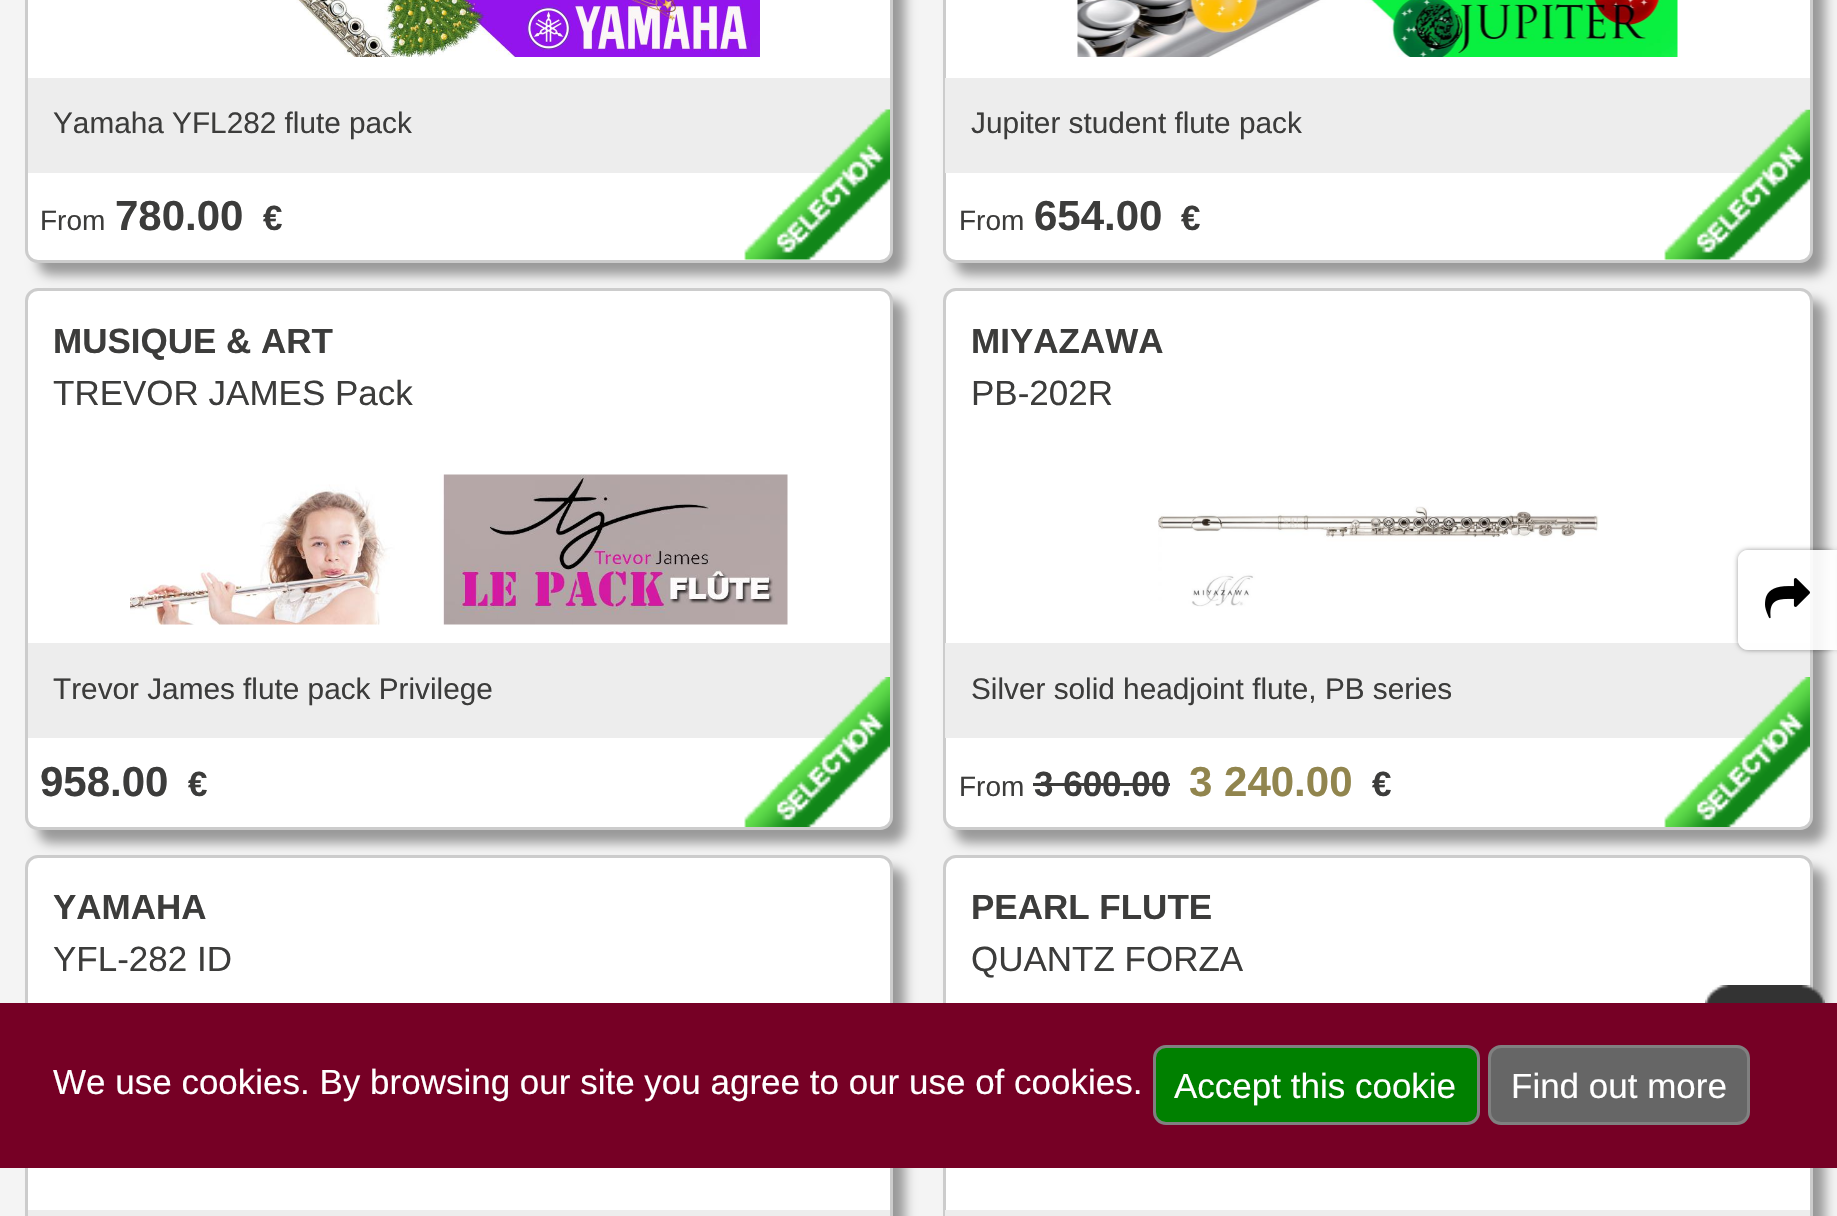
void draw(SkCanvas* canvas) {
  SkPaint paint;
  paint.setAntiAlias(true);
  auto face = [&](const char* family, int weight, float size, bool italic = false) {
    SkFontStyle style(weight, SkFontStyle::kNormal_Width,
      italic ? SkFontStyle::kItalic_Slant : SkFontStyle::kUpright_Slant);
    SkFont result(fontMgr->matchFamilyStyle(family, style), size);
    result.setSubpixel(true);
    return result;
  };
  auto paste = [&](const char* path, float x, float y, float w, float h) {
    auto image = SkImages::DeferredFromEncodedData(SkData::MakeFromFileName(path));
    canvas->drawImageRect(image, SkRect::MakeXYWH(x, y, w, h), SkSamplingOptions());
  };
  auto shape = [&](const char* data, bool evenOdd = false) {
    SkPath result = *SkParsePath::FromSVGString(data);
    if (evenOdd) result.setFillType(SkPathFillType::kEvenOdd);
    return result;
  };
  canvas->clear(0xfff4f4f4);
  paint.setColor(0xff999999);
  paint.setMaskFilter(SkMaskFilter::MakeBlur(kNormal_SkBlurStyle, 6));
  canvas->drawRoundRect(SkRect::MakeXYWH(38, -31, 867, 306), 13, 13, paint);
  paint.setMaskFilter(nullptr);
  paint.setColor(0xffffffff);
  canvas->drawRoundRect(SkRect::MakeXYWH(26.5f, -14.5f, 865, 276), 11.5f, 11.5f, paint);
  paint.setStroke(true);
  paint.setStrokeWidth(3);
  paint.setColor(0xffcccccc);
  canvas->drawRoundRect(SkRect::MakeXYWH(26.5f, -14.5f, 865, 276), 11.5f, 11.5f, paint);
  paste("img/1.png", 296, 0, 464, 57);
  paint.setStroke(false);
  paint.setColor(0xffededed);
  canvas->drawRect(SkRect::MakeXYWH(28, 78, 862, 95), paint);
  paste("img/2.png", 744, 109, 146, 151);
  paint.setColor(0xff999999);
  paint.setMaskFilter(SkMaskFilter::MakeBlur(kNormal_SkBlurStyle, 6));
  canvas->drawRoundRect(SkRect::MakeXYWH(955, -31, 870, 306), 13, 13, paint);
  paint.setMaskFilter(nullptr);
  paint.setColor(0xffffffff);
  canvas->drawRoundRect(SkRect::MakeXYWH(944.5f, -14.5f, 867, 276), 11.5f, 11.5f, paint);
  paint.setStroke(true);
  paint.setColor(0xffcccccc);
  canvas->drawRoundRect(SkRect::MakeXYWH(944.5f, -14.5f, 867, 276), 11.5f, 11.5f, paint);
  paste("img/3.png", 1077, 0, 601, 57);
  paint.setStroke(false);
  paint.setColor(0xffededed);
  canvas->drawRect(SkRect::MakeXYWH(945, 78, 865, 95), paint);
  paste("img/4.png", 1664, 109, 146, 151);
  paint.setColor(0xff999999);
  paint.setMaskFilter(SkMaskFilter::MakeBlur(kNormal_SkBlurStyle, 6));
  canvas->drawRoundRect(SkRect::MakeXYWH(38, 300, 867, 543), 13, 13, paint);
  paint.setMaskFilter(nullptr);
  paint.setColor(0xffffffff);
  canvas->drawRoundRect(SkRect::MakeXYWH(26.5f, 289.5f, 865, 539), 11.5f, 11.5f, paint);
  paint.setStroke(true);
  paint.setColor(0xffcccccc);
  canvas->drawRoundRect(SkRect::MakeXYWH(26.5f, 289.5f, 865, 539), 11.5f, 11.5f, paint);
  paste("img/5.png", 130, 474, 658, 151);
  paint.setStroke(false);
  paint.setColor(0xffededed);
  canvas->drawRect(SkRect::MakeXYWH(28, 643, 862, 95), paint);
  paste("img/6.png", 744, 677, 146, 150);
  paint.setColor(0xff999999);
  paint.setMaskFilter(SkMaskFilter::MakeBlur(kNormal_SkBlurStyle, 6));
  canvas->drawRoundRect(SkRect::MakeXYWH(955, 300, 870, 543), 13, 13, paint);
  paint.setMaskFilter(nullptr);
  paint.setColor(0xffffffff);
  canvas->drawRoundRect(SkRect::MakeXYWH(944.5f, 289.5f, 867, 539), 11.5f, 11.5f, paint);
  paint.setStroke(true);
  paint.setColor(0xffcccccc);
  canvas->drawRoundRect(SkRect::MakeXYWH(944.5f, 289.5f, 867, 539), 11.5f, 11.5f, paint);
  paste("img/7.png", 1158, 506, 441, 101);
  paint.setStroke(false);
  paint.setColor(0xffededed);
  canvas->drawRect(SkRect::MakeXYWH(945, 643, 865, 95), paint);
  paint.setColor(0xff3c3c3b);
  canvas->drawRect(SkRect::MakeXYWH(1033, 783, 137, 3), paint);
  paste("img/8.png", 1664, 677, 146, 150);
  paint.setColor(0xff999999);
  paint.setMaskFilter(SkMaskFilter::MakeBlur(kNormal_SkBlurStyle, 6));
  canvas->drawRoundRect(SkRect::MakeXYWH(38, 868, 867, 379), 13, 13, paint);
  paint.setMaskFilter(nullptr);
  paint.setColor(0xffffffff);
  canvas->drawRoundRect(SkRect::MakeXYWH(26.5f, 856.5f, 865, 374), 11.5f, 11.5f, paint);
  paint.setStroke(true);
  paint.setColor(0xffcccccc);
  canvas->drawRoundRect(SkRect::MakeXYWH(26.5f, 856.5f, 865, 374), 11.5f, 11.5f, paint);
  paint.setStroke(false);
  paint.setColor(0xffededed);
  canvas->drawRect(SkRect::MakeXYWH(28, 1210, 862, 6), paint);
  paint.setColor(0xff999999);
  paint.setMaskFilter(SkMaskFilter::MakeBlur(kNormal_SkBlurStyle, 6));
  canvas->drawRoundRect(SkRect::MakeXYWH(955, 868, 870, 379), 13, 13, paint);
  paint.setMaskFilter(nullptr);
  paint.setColor(0xffffffff);
  canvas->drawRoundRect(SkRect::MakeXYWH(944.5f, 856.5f, 867, 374), 11.5f, 11.5f, paint);
  paint.setStroke(true);
  paint.setColor(0xffcccccc);
  canvas->drawRoundRect(SkRect::MakeXYWH(944.5f, 856.5f, 867, 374), 11.5f, 11.5f, paint);
  paint.setStroke(false);
  paint.setColor(0xffededed);
  canvas->drawRect(SkRect::MakeXYWH(945, 1210, 865, 6), paint);
  paint.setColor(0x66000000);
  paint.setMaskFilter(SkMaskFilter::MakeBlur(kNormal_SkBlurStyle, 2.5f));
  canvas->drawRect(SkRect::MakeXYWH(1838, 550, 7, 100), paint);
  paint.setMaskFilter(nullptr);
  canvas->save();
  canvas->clipPath(shape("M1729 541H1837V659H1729ZM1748 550H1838V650H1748C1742.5 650 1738 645.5 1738 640V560C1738 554.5 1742.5 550 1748 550Z", true), true);
  paint.setMaskFilter(SkMaskFilter::MakeBlur(kNormal_SkBlurStyle, 2.5f));
  canvas->drawRoundRect(SkRect::MakeXYWH(1738, 550, 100, 100), 10, 10, paint);
  paint.setMaskFilter(nullptr);
  canvas->restore();
  paint.setColor(0xe6ffffff);
  canvas->drawPath(shape("M1748 550H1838V650H1748C1742.5 650 1738 645.5 1738 640V560C1738 554.5 1742.5 550 1748 550Z"), paint);
  paste("img/9.png", 1765, 578, 45, 41);
  paste("img/10.png", 1705, 985, 120, 18);
  paint.setColor(0xff760025);
  canvas->drawRect(SkRect::MakeXYWH(0, 1003, 1837, 165), paint);
  paint.setColor(0xff008000);
  canvas->drawRoundRect(SkRect::MakeXYWH(1154.5f, 1046.5f, 324, 77), 11.5f, 11.5f, paint);
  paint.setStroke(true);
  paint.setColor(0xff808080);
  canvas->drawRoundRect(SkRect::MakeXYWH(1154.5f, 1046.5f, 324, 77), 11.5f, 11.5f, paint);
  paint.setStroke(false);
  paint.setColor(0xff666666);
  canvas->drawRoundRect(SkRect::MakeXYWH(1489.5f, 1046.5f, 259, 77), 11.5f, 11.5f, paint);
  paint.setStroke(true);
  paint.setColor(0xff808080);
  canvas->drawRoundRect(SkRect::MakeXYWH(1489.5f, 1046.5f, 259, 77), 11.5f, 11.5f, paint);
  auto f0 = face("Liberation Sans", 400, 29.75f);
  paint.setStroke(false);
  paint.setColor(0xff3c3c3b);
  canvas->drawString("Yamaha YFL282 flute pack", 53, 133, f0, paint);
  auto f1 = face("Liberation Sans", 400, 28);
  canvas->drawString("From", 40, 230, f1, paint);
  auto f2 = face("Liberation Sans", 700, 42);
  canvas->drawString("780.00", 115, 230, f2, paint);
  auto f3 = face("Liberation Sans", 700, 35);
  canvas->drawString("€", 263, 230, f3, paint);
  canvas->drawString("Jupiter student flute pack", 971, 133, f0, paint);
  canvas->drawString("From", 959, 230, f1, paint);
  canvas->drawString("654.00", 1034, 230, f2, paint);
  canvas->drawString("€", 1181, 230, f3, paint);
  canvas->drawString("MUSIQUE & ART", 53, 353, f3, paint);
  auto f4 = face("Liberation Sans", 400, 35);
  canvas->drawString("TREVOR JAMES Pack", 53, 405, f4, paint);
  canvas->drawString("Trevor James flute pack Privilege", 53, 699, f0, paint);
  canvas->drawString("958.00", 40, 796, f2, paint);
  canvas->drawString("€", 188, 796, f3, paint);
  canvas->drawString("MIYAZAWA", 971, 353, f3, paint);
  canvas->drawString("PB-202R", 971, 405, f4, paint);
  canvas->drawString("Silver solid headjoint flute, PB series", 971, 699, f0, paint);
  canvas->drawString("From", 959, 796, f1, paint);
  canvas->drawString("3 600.00", 1034, 796, f3, paint);
  paint.setColor(0xff91854e);
  canvas->drawString("3 240.00", 1189, 796, f2, paint);
  paint.setColor(0xff3c3c3b);
  canvas->drawString("€", 1372, 796, f3, paint);
  canvas->drawString("YAMAHA", 53, 919, f3, paint);
  canvas->drawString("YFL-282 ID", 53, 971, f4, paint);
  canvas->drawString("PEARL FLUTE", 971, 919, f3, paint);
  canvas->drawString("QUANTZ FORZA", 971, 971, f4, paint);
  paint.setColor(0xffffffff);
  {
    const struct { const char* s; float x, y; } items[] = {
      {"We use cookies. By browsing our site you agree to our use of cookies.", 53, 1094},
      {"Accept this cookie", 1174, 1098},
      {"Find out more", 1511, 1098},
    };
    for (auto [s, x, y] : items) {
      canvas->drawString(s, x, y, f4, paint);
    }
  }
}
